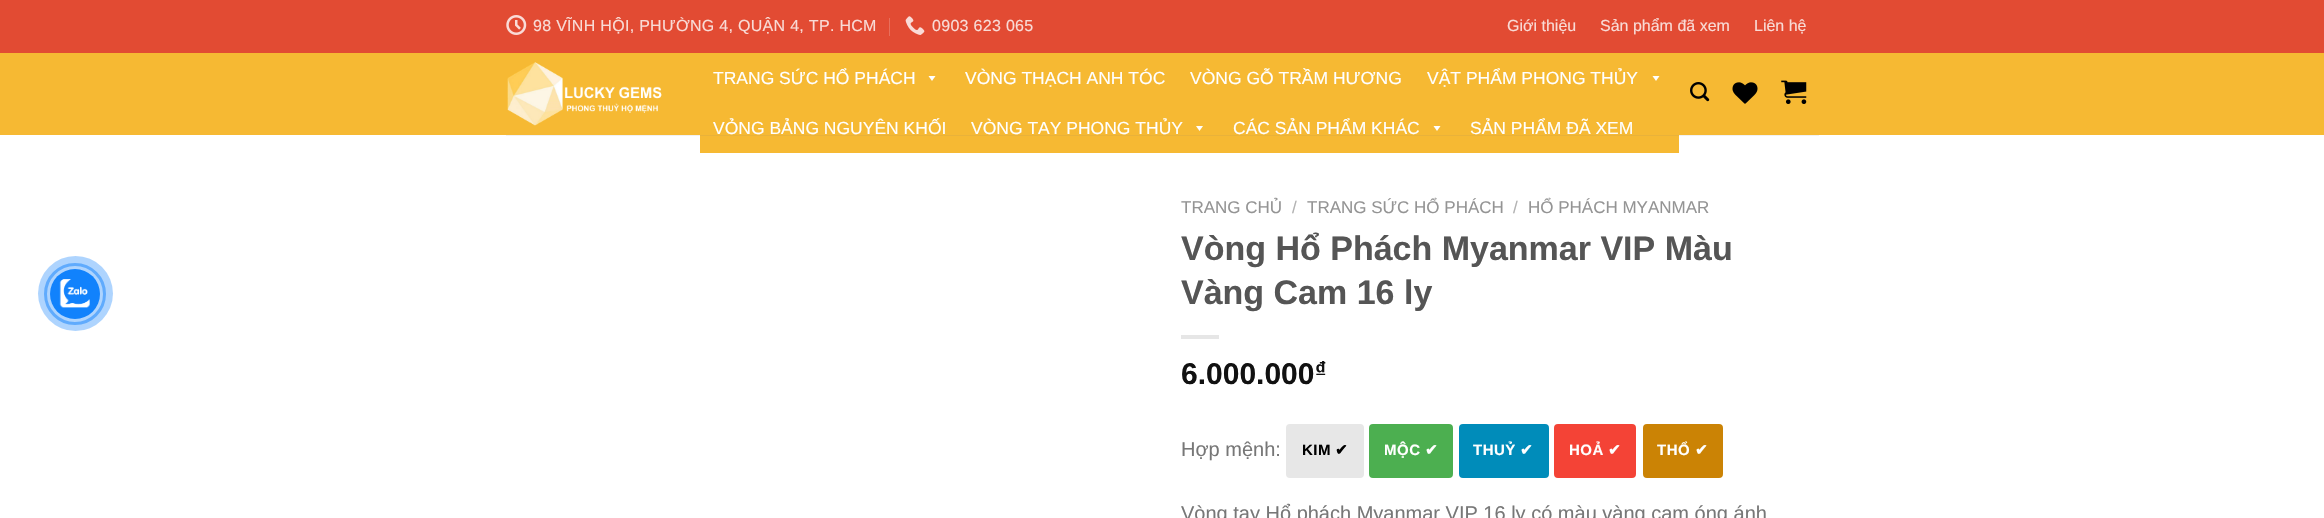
void draw(SkCanvas* canvas) {
  SkPaint paint;
  paint.setAntiAlias(true);
  auto face = [&](const char* family, int weight, float size, bool italic = false) {
    SkFontStyle style(weight, SkFontStyle::kNormal_Width,
      italic ? SkFontStyle::kItalic_Slant : SkFontStyle::kUpright_Slant);
    SkFont result(fontMgr->matchFamilyStyle(family, style), size);
    result.setSubpixel(true);
    return result;
  };
  auto writeSpaced = [&](const char* s, float x, float y, const SkFont& font, const SkPaint& ink, float letter, float word) {
    std::vector<SkGlyphID> glyphs(font.countText(s, strlen(s), SkTextEncoding::kUTF8));
    std::vector<float> xs(glyphs.size());
    font.textToGlyphs(s, strlen(s), SkTextEncoding::kUTF8, glyphs);
    font.getXPos(glyphs, xs, x);
    float extra = 0;
    for (size_t i = 0; i < glyphs.size(); i++) {
      xs[i] += extra;
      extra += letter + word * (glyphs[i] == font.unicharToGlyph(' '));
    }
    canvas->drawTextBlob(SkTextBlob::MakeFromPosHGlyphs(glyphs, xs, y, font), 0, 0, ink);
  };
  auto paste = [&](const char* path, float x, float y, float w, float h) {
    auto image = SkImages::DeferredFromEncodedData(SkData::MakeFromFileName(path));
    canvas->drawImageRect(image, SkRect::MakeXYWH(x, y, w, h), SkSamplingOptions());
  };
  auto shape = [&](const char* data, bool evenOdd = false) {
    SkPath result = *SkParsePath::FromSVGString(data);
    if (evenOdd) result.setFillType(SkPathFillType::kEvenOdd);
    return result;
  };
  canvas->clear(0xffffffff);
  paint.setStroke(true);
  paint.setStrokeWidth(3);
  paint.setColor(0xff88c1fe);
  canvas->drawCircle(75, 294, 29.5f, paint);
  paint.setStroke(false);
  paint.setColor(0x571182fc);
  canvas->drawCircle(75.5f, 293.5f, 37.5f, paint);
  paint.setColor(0xff1182fc);
  canvas->drawCircle(75, 294, 25, paint);
  paste("img/1.png", 59, 279, 31, 29);
  paint.setColor(0xfff1f1f1);
  canvas->drawRect(SkRect::MakeXYWH(506, 135, 1313, 1), paint);
  paint.setColor(0xffe24b33);
  canvas->drawRect(SkRect::MakeXYWH(0, 0, 2324, 53), paint);
  paste("img/2.png", 506, 15, 21, 20);
  paint.setColor(0xffe86f5c);
  canvas->drawRect(SkRect::MakeXYWH(889, 18, 1, 18), paint);
  paste("img/3.png", 905, 16, 20, 19);
  paint.setColor(0xfff6b933);
  canvas->drawRect(SkRect::MakeXYWH(0, 53, 2324, 82), paint);
  paste("img/4.png", 507, 62, 155, 64);
  canvas->drawRect(SkRect::MakeXYWH(700, 135, 979, 18), paint);
  paint.setColor(0xffe9b23a);
  canvas->drawRect(SkRect::MakeXYWH(700, 135, 979, 1), paint);
  paint.setColor(0xffffffff);
  canvas->drawPath(shape("M935.5 76L932 81L928.5 76Z"), paint);
  canvas->drawPath(shape("M1659.5 76L1656 81L1652.5 76Z"), paint);
  canvas->drawPath(shape("M1203 126L1199.5 131L1196 126Z"), paint);
  canvas->drawPath(shape("M1440.5 126L1437 131L1433.5 126Z"), paint);
  paste("img/5.png", 1690, 82, 20, 20);
  paste("img/6.png", 1732, 82, 26, 22);
  paste("img/7.png", 1781, 80, 26, 24);
  paint.setColor(0xffe6e6e6);
  canvas->drawRect(SkRect::MakeXYWH(1181, 335, 38, 4), paint);
  paint.setColor(0xffe7e7e7);
  canvas->drawRoundRect(SkRect::MakeXYWH(1287.5f, 425.5f, 75, 51), 2.5f, 2.5f, paint);
  paint.setStroke(true);
  canvas->drawRoundRect(SkRect::MakeXYWH(1287.5f, 425.5f, 75, 51), 2.5f, 2.5f, paint);
  paint.setStroke(false);
  paint.setColor(0xff4caf50);
  canvas->drawRoundRect(SkRect::MakeXYWH(1370.5f, 425.5f, 81, 51), 2.5f, 2.5f, paint);
  paint.setStroke(true);
  canvas->drawRoundRect(SkRect::MakeXYWH(1370.5f, 425.5f, 81, 51), 2.5f, 2.5f, paint);
  paint.setStroke(false);
  paint.setColor(0xff008cba);
  canvas->drawRoundRect(SkRect::MakeXYWH(1460.5f, 425.5f, 87, 51), 2.5f, 2.5f, paint);
  paint.setStroke(true);
  canvas->drawRoundRect(SkRect::MakeXYWH(1460.5f, 425.5f, 87, 51), 2.5f, 2.5f, paint);
  paint.setStroke(false);
  paint.setColor(0xfff44336);
  canvas->drawRoundRect(SkRect::MakeXYWH(1555.5f, 425.5f, 79, 51), 2.5f, 2.5f, paint);
  paint.setStroke(true);
  canvas->drawRoundRect(SkRect::MakeXYWH(1555.5f, 425.5f, 79, 51), 2.5f, 2.5f, paint);
  paint.setStroke(false);
  paint.setColor(0xffcb8305);
  canvas->drawRoundRect(SkRect::MakeXYWH(1644.5f, 425.5f, 77, 51), 2.5f, 2.5f, paint);
  paint.setStroke(true);
  canvas->drawRoundRect(SkRect::MakeXYWH(1644.5f, 425.5f, 77, 51), 2.5f, 2.5f, paint);
  auto f0 = face("Liberation Sans", 400, 16);
  paint.setStroke(false);
  paint.setColor(0xfff9dbd6);
  writeSpaced("98 VĨNH HỘI, PHƯỜNG 4, QUẬN 4, TP. HCM", 533, 31, f0, paint, 0.3f, 0);
  writeSpaced("0903 623 065", 932, 31, f0, paint, 0.3f, 0);
  {
    const struct { const char* s; float x, y; } items[] = {
      {"Giới thiệu", 1507, 31},
      {"Sản phẩm đã xem", 1600, 31},
      {"Liên hệ", 1754, 31},
    };
    for (auto [s, x, y] : items) {
      canvas->drawString(s, x, y, f0, paint);
    }
  }
  auto f1 = face("Liberation Sans", 400, 17.5f);
  paint.setColor(0xffffffff);
  {
    const struct { const char* s; float x, y; } items[] = {
      {"TRANG SỨC HỔ PHÁCH", 713, 84},
      {"VÒNG THẠCH ANH TÓC", 965, 84},
      {"VÒNG GỖ TRẦM HƯƠNG", 1190, 84},
      {"VẬT PHẨM PHONG THỦY", 1427, 84},
      {"VỎNG BẢNG NGUYÊN KHỐI", 713, 134},
      {"VÒNG TAY PHONG THỦY", 971, 134},
      {"CÁC SẢN PHẨM KHÁC", 1233, 134},
      {"SẢN PHẨM ĐÃ XEM", 1470, 134},
    };
    for (auto [s, x, y] : items) {
      canvas->drawString(s, x, y, f1, paint);
    }
  }
  auto f2 = face("Liberation Sans", 400, 17);
  paint.setColor(0xff949494);
  canvas->drawString("TRANG CHỦ", 1181, 213, f2, paint);
  paint.setColor(0xffb2b2b2);
  canvas->drawString("/", 1292, 213, f2, paint);
  paint.setColor(0xff949494);
  canvas->drawString("TRANG SỨC HỔ PHÁCH", 1307, 213, f2, paint);
  paint.setColor(0xffb2b2b2);
  canvas->drawString("/", 1513, 213, f2, paint);
  paint.setColor(0xff949494);
  canvas->drawString("HỔ PHÁCH MYANMAR", 1528, 213, f2, paint);
  auto f3 = face("Liberation Sans", 700, 34);
  paint.setColor(0xff555555);
  canvas->drawString("Vòng Hổ Phách Myanmar VIP Màu", 1181, 260, f3, paint);
  canvas->drawString("Vàng Cam 16 ly", 1181, 304, f3, paint);
  auto f4 = face("Liberation Sans", 700, 30);
  paint.setColor(0xff111111);
  canvas->drawString("6.000.000", 1181, 384, f4, paint);
  auto f5 = face("Liberation Sans", 700, 22);
  canvas->drawString("₫", 1315, 377, f5, paint);
  auto f6 = face("Liberation Sans", 400, 20);
  paint.setColor(0xff777777);
  canvas->drawString("Hợp mệnh:", 1181, 456, f6, paint);
  auto f7 = face("Liberation Sans", 700, 15);
  paint.setColor(0xff000000);
  writeSpaced("KIM", 1302, 455, f7, paint, 0.5f, 0);
  auto f8 = face("DejaVu Sans", 700, 15);
  writeSpaced("✔", 1335, 455, f8, paint, 0.5f, 0);
  paint.setColor(0xffffffff);
  writeSpaced("MỘC", 1384, 455, f7, paint, 0.5f, 0);
  writeSpaced("✔", 1425, 455, f8, paint, 0.5f, 0);
  writeSpaced("THUỶ", 1473, 455, f7, paint, 0.5f, 0);
  writeSpaced("✔", 1520, 455, f8, paint, 0.5f, 0);
  writeSpaced("HOẢ", 1569, 455, f7, paint, 0.5f, 0);
  writeSpaced("✔", 1608, 455, f8, paint, 0.5f, 0);
  writeSpaced("THỔ", 1657, 455, f7, paint, 0.5f, 0);
  writeSpaced("✔", 1695, 455, f8, paint, 0.5f, 0);
  paint.setColor(0xff777777);
  canvas->drawString("Vòng tay Hổ phách Myanmar VIP 16 ly có màu vàng cam óng ánh", 1181, 520, f6, paint);
}
